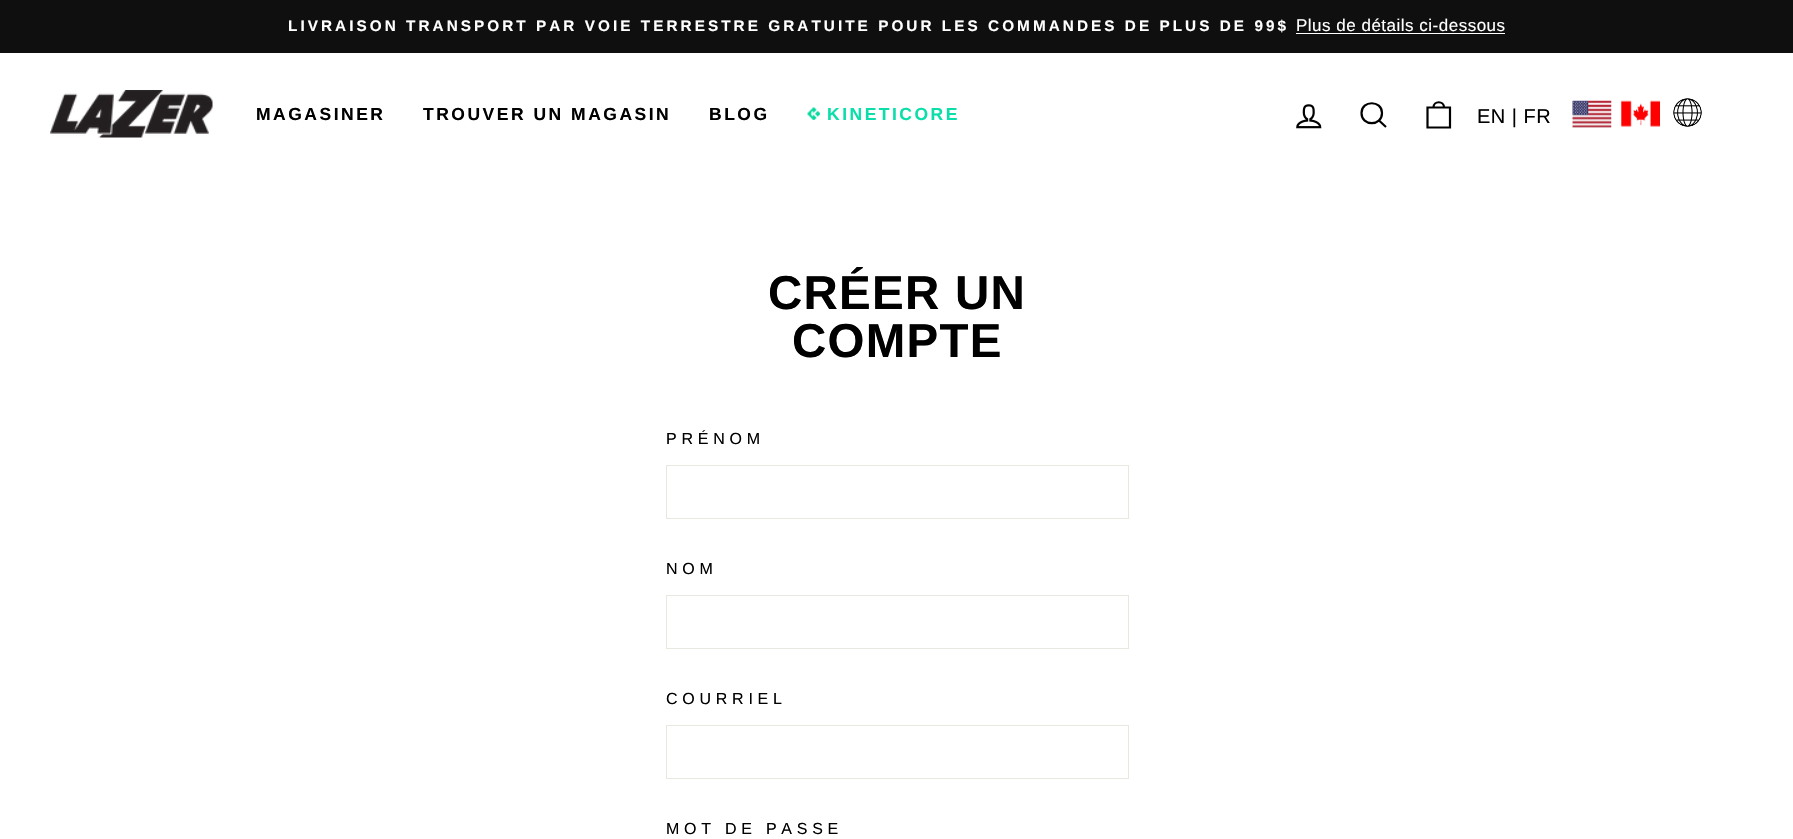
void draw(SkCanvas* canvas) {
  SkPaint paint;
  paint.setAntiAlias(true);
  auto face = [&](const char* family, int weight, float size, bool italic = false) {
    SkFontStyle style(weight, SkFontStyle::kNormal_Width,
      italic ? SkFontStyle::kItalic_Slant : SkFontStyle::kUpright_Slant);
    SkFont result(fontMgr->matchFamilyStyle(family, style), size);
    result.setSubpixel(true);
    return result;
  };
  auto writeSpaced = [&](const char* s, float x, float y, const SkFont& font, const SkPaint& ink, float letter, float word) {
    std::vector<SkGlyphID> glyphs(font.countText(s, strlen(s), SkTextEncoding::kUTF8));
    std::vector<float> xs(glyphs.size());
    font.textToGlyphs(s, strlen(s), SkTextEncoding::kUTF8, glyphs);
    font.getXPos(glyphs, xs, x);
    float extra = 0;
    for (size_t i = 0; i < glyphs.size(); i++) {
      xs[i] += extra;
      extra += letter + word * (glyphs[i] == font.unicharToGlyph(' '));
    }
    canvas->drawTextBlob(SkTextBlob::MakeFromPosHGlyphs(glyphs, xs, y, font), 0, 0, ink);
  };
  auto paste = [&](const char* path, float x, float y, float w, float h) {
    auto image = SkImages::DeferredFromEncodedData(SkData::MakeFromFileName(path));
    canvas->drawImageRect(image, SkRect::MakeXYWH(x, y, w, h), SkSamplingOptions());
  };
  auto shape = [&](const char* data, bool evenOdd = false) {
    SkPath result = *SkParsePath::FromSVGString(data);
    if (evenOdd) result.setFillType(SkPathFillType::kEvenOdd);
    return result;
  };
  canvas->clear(0xffffffff);
  paint.setColor(0xff0f0f0f);
  canvas->drawRect(SkRect::MakeXYWH(0, 0, 1793, 53), paint);
  paint.setColor(0xffffffff);
  canvas->drawRect(SkRect::MakeXYWH(1296, 33, 209, 1), paint);
  paste("img/1.png", 50, 90, 163, 48);
  paste("img/2.png", 807, 107, 13, 13);
  paste("img/3.png", 1296, 104, 26, 25);
  paint.setStroke(true);
  paint.setStrokeWidth(2.2f);
  paint.setColor(0xff000000);
  canvas->drawPath(shape("M1382 113C1382 126.5 1361.5 126.5 1361.5 113C1361.5 100 1382 100 1382 113ZM1386 127L1379 120.5"), paint);
  canvas->drawPath(shape("M1427.5 107.5H1450V127.5H1427.5ZM1433.5 107.5C1433.5 100.5 1444 100.5 1444 107.5"), paint);
  paste("img/4.png", 1572, 100, 40, 28);
  paste("img/5.png", 1621, 100, 39, 27);
  paste("img/6.png", 1673, 98, 29, 29);
  paint.setStrokeWidth(1);
  paint.setColor(0xffe8e8e1);
  canvas->drawRect(SkRect::MakeXYWH(666.5f, 465.5f, 462, 53), paint);
  canvas->drawRect(SkRect::MakeXYWH(666.5f, 595.5f, 462, 53), paint);
  canvas->drawRect(SkRect::MakeXYWH(666.5f, 725.5f, 462, 53), paint);
  auto f0 = face("Liberation Sans", 700, 15.3f);
  paint.setStroke(false);
  paint.setColor(0xffffffff);
  writeSpaced("LIVRAISON TRANSPORT PAR VOIE TERRESTRE GRATUITE POUR LES COMMANDES DE PLUS DE 99$", 288, 31, f0, paint, 3.05f, 0);
  auto f1 = face("Liberation Sans", 400, 17);
  writeSpaced("Plus de détails ci-dessous", 1296, 31, f1, paint, 0.5f, 0);
  auto f2 = face("Liberation Sans", 700, 17.5f);
  paint.setColor(0xff000000);
  {
    const struct { const char* s; float x, y; } items[] = {
      {"MAGASINER", 256, 120},
      {"TROUVER UN MAGASIN", 423, 120},
      {"BLOG", 709, 120},
    };
    for (auto [s, x, y] : items) {
      writeSpaced(s, x, y, f2, paint, 2.5f, 0);
    }
  }
  paint.setColor(0xff0bdeaa);
  writeSpaced("KINETICORE", 827, 120, f2, paint, 2.5f, 0);
  auto f3 = face("Liberation Sans", 400, 20);
  paint.setColor(0xff000000);
  writeSpaced("EN | FR", 1477, 123, f3, paint, 0.5f, 0);
  auto f4 = face("Liberation Sans", 700, 47.5f);
  writeSpaced("CRÉER UN", 768, 309, f4, paint, 1.25f, 0);
  writeSpaced("COMPTE", 792, 357, f4, paint, 1.25f, 0);
  auto f5 = face("Liberation Sans", 400, 16);
  {
    const struct { const char* s; float x, y; } items[] = {
      {"PRÉNOM", 666, 444},
      {"NOM", 666, 574},
      {"COURRIEL", 666, 704},
      {"MOT DE PASSE", 666, 834},
    };
    for (auto [s, x, y] : items) {
      writeSpaced(s, x, y, f5, paint, 4.75f, 0);
    }
  }
}
